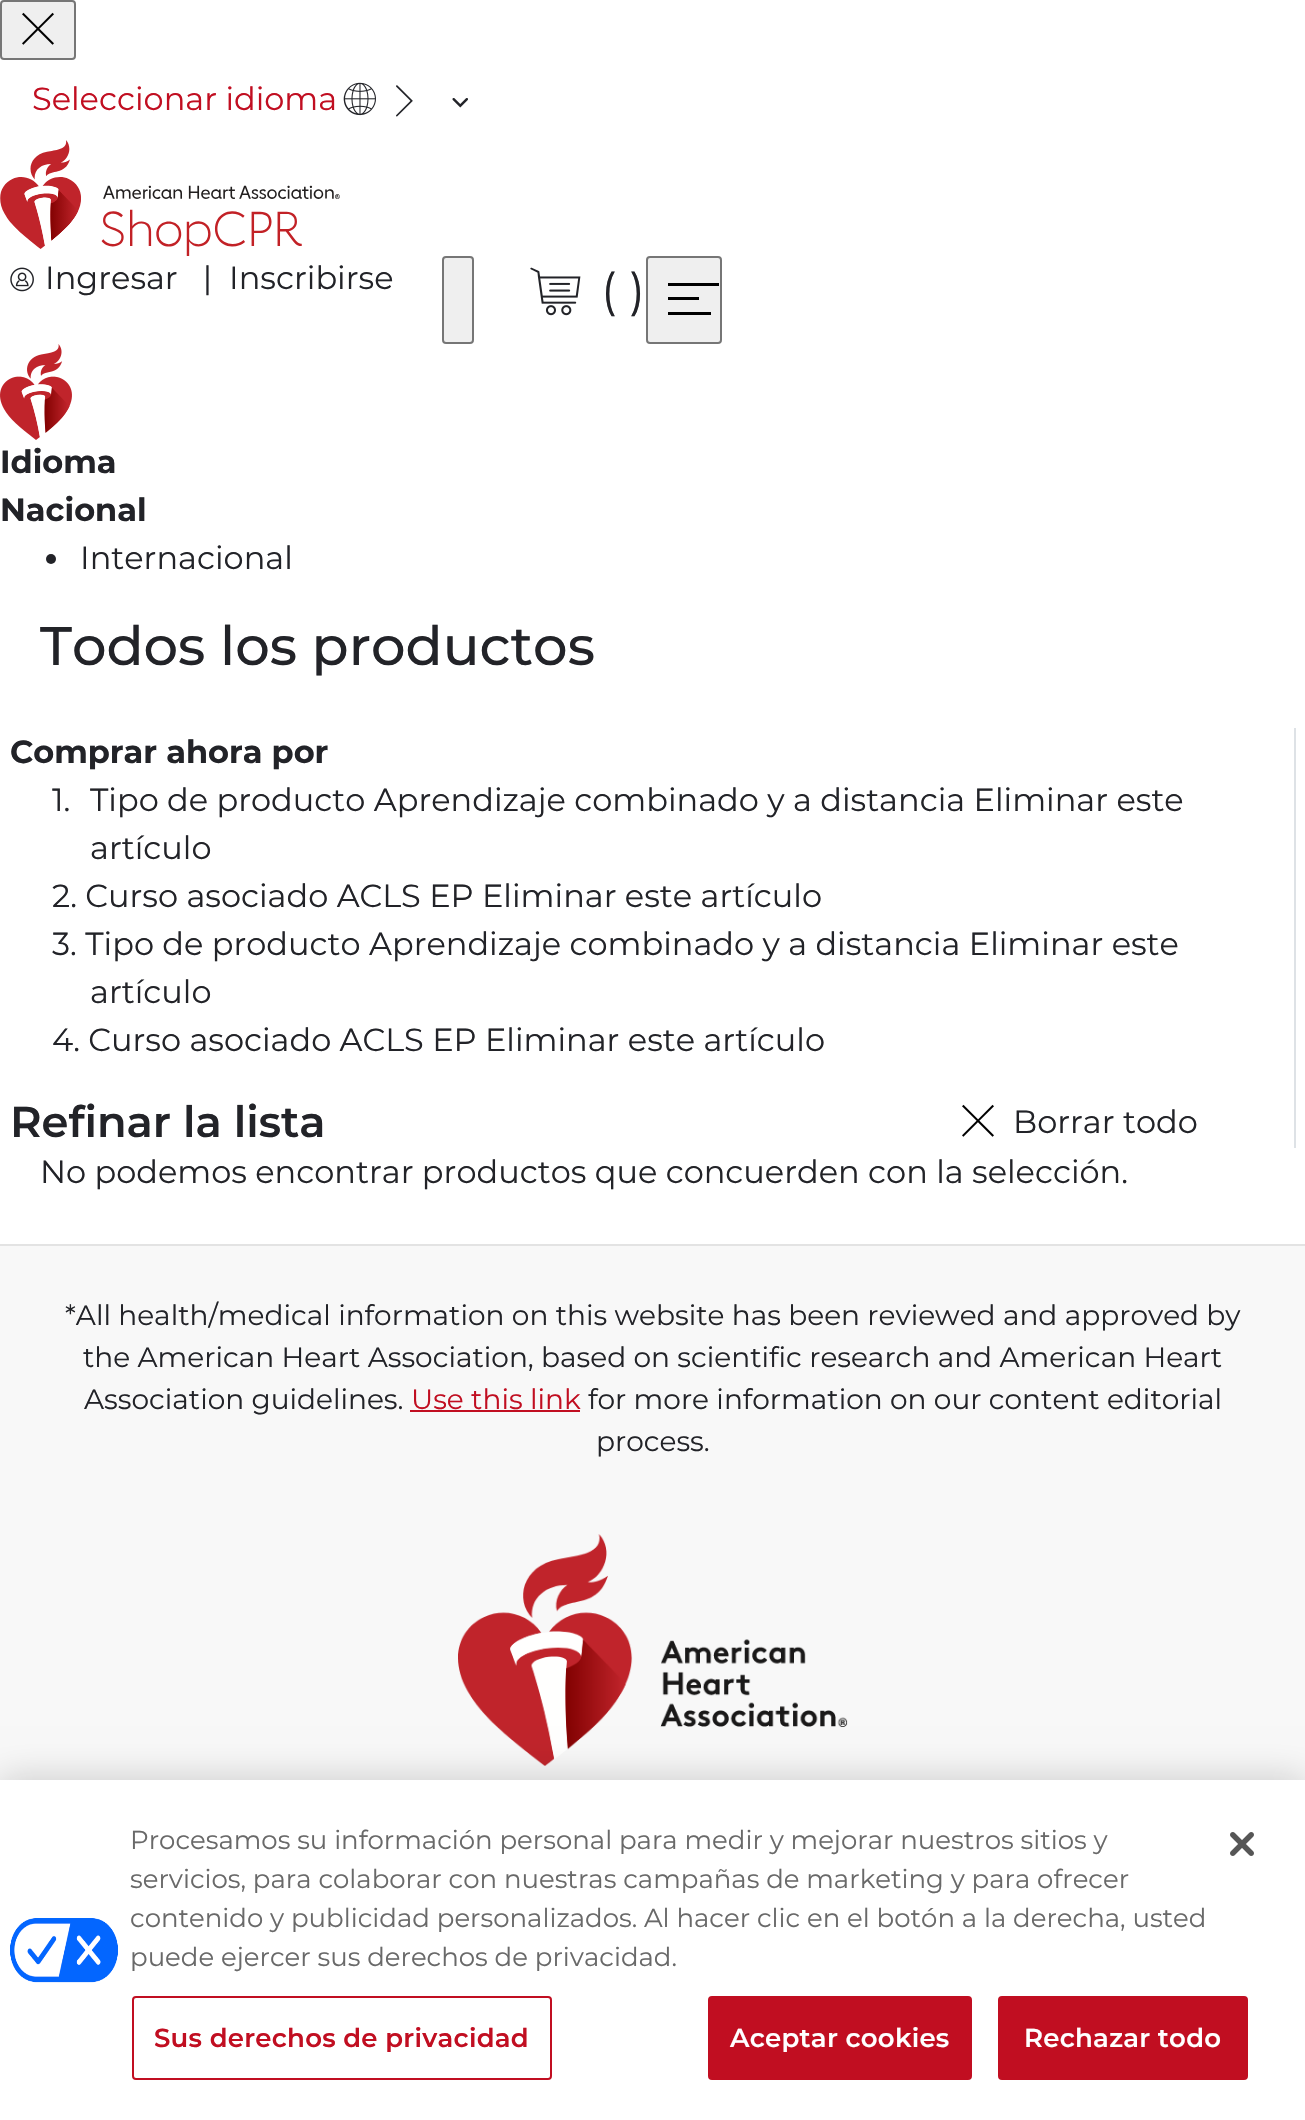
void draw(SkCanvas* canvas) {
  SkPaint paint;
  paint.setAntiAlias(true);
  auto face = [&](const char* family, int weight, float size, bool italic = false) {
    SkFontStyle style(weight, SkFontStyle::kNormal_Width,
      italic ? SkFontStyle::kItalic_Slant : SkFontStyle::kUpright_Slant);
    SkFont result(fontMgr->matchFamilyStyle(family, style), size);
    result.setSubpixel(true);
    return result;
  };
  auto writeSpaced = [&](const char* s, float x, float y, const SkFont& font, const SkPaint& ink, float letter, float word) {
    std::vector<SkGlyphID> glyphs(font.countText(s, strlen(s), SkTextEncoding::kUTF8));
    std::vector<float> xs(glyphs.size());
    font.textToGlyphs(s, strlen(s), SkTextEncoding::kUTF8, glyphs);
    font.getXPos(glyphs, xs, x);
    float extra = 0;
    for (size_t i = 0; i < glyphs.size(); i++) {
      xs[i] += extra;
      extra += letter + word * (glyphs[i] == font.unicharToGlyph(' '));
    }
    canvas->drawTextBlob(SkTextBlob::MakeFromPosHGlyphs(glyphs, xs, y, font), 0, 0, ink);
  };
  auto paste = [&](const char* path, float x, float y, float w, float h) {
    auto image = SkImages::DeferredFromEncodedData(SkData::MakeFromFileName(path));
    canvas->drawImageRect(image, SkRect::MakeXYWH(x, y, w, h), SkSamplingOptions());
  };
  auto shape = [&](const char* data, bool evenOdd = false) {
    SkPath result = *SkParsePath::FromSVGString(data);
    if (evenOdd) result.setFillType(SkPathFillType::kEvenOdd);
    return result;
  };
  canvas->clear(0xffffffff);
  paint.setColor(0xffefefef);
  canvas->drawRoundRect(SkRect::MakeXYWH(1, 1, 74, 58), 3, 3, paint);
  paint.setStroke(true);
  paint.setStrokeWidth(2);
  paint.setColor(0xff767676);
  canvas->drawRoundRect(SkRect::MakeXYWH(1, 1, 74, 58), 3, 3, paint);
  paste("img/1.png", 22, 12, 32, 33);
  paste("img/2.png", 343, 82, 33, 34);
  paste("img/3.png", 396, 85, 17, 32);
  paste("img/4.png", 452, 98, 16, 10);
  paste("img/5.png", 0, 140, 340, 116);
  paste("img/6.png", 10, 267, 24, 25);
  paint.setStroke(false);
  paint.setColor(0xffefefef);
  canvas->drawRoundRect(SkRect::MakeXYWH(443, 257, 30, 86), 3, 3, paint);
  paint.setStroke(true);
  paint.setColor(0xff767676);
  canvas->drawRoundRect(SkRect::MakeXYWH(443, 257, 30, 86), 3, 3, paint);
  paste("img/7.png", 530, 267, 51, 49);
  paint.setStroke(false);
  paint.setColor(0xffefefef);
  canvas->drawRoundRect(SkRect::MakeXYWH(647, 257, 74, 86), 3, 3, paint);
  paint.setStroke(true);
  paint.setColor(0xff767676);
  canvas->drawRoundRect(SkRect::MakeXYWH(647, 257, 74, 86), 3, 3, paint);
  paint.setStroke(false);
  paint.setColor(0xff000000);
  canvas->drawPath(shape("M719 283V286H668V283ZM699 297H668V300H699ZM668 315H711V312H668Z"), paint);
  paste("img/8.png", 0, 344, 72, 96);
  paint.setColor(0xff222328);
  canvas->drawCircle(51, 559, 5, paint);
  paint.setColor(0xffdee2e6);
  canvas->drawRect(SkRect::MakeXYWH(1294, 728, 2, 420), paint);
  paste("img/9.png", 962, 1104, 32, 33);
  {
    const struct { float x, y, w, h; SkColor color; } items[] = {
      {0, 1246, 1305, 534, 0xfff8f8f8},
      {0, 1244, 1305, 2, 0xffe3e3e3},
      {410, 1410, 170, 2, 0xffc10e21},
    };
    for (auto [x, y, w, h, color] : items) {
      paint.setColor(color);
      canvas->drawRect(SkRect::MakeXYWH(x, y, w, h), paint);
    }
  }
  paste("img/10.png", 458, 1534, 390, 232);
  paint.setColor(0x33000000);
  paint.setMaskFilter(SkMaskFilter::MakeBlur(kNormal_SkBlurStyle, 18));
  canvas->drawRect(SkRect::MakeXYWH(0, 1780, 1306, 340), paint);
  paint.setMaskFilter(nullptr);
  paint.setColor(0xffffffff);
  canvas->drawRect(SkRect::MakeXYWH(0, 1780, 1305, 340), paint);
  paste("img/11.png", 10, 1918, 108, 65);
  paint.setStroke(true);
  paint.setColor(0xffc10e21);
  canvas->drawRoundRect(SkRect::MakeXYWH(133, 1997, 418, 82), 3, 3, paint);
  paint.setStroke(false);
  canvas->drawRoundRect(SkRect::MakeXYWH(709, 1997, 262, 82), 3, 3, paint);
  paint.setStroke(true);
  canvas->drawRoundRect(SkRect::MakeXYWH(709, 1997, 262, 82), 3, 3, paint);
  paint.setStroke(false);
  canvas->drawRoundRect(SkRect::MakeXYWH(999, 1997, 248, 82), 3, 3, paint);
  paint.setStroke(true);
  canvas->drawRoundRect(SkRect::MakeXYWH(999, 1997, 248, 82), 3, 3, paint);
  paste("img/12.png", 1230, 1832, 24, 24);
  auto f0 = face("Montserrat", 400, 32);
  paint.setStroke(false);
  canvas->drawString("Seleccionar idioma", 32, 110, f0, paint);
  paint.setColor(0xff222328);
  canvas->drawString("Ingresar   |  Inscribirse", 45, 289, f0, paint);
  auto f1 = face("Montserrat", 400, 48);
  canvas->drawString("( )", 601, 307, f1, paint);
  auto f2 = face("Montserrat", 700, 32);
  canvas->drawString("Idioma", 0, 473, f2, paint);
  canvas->drawString("Nacional", 0, 521, f2, paint);
  canvas->drawString("Internacional", 80, 569, f0, paint);
  auto f3 = face("Montserrat", 500, 54.4f);
  canvas->drawString("Todos los productos", 40, 665, f3, paint);
  canvas->drawString("Comprar ahora por", 10, 763, f2, paint);
  {
    const struct { const char* s; float x, y; } items[] = {
      {"1.", 52, 811},
      {"Tipo de producto Aprendizaje combinado y a distancia Eliminar este", 90, 811},
      {"artículo", 90, 859},
      {"2. Curso asociado ACLS EP Eliminar este artículo", 52, 907},
      {"3. Tipo de producto Aprendizaje combinado y a distancia Eliminar este", 52, 955},
      {"artículo", 90, 1003},
      {"4. Curso asociado ACLS EP Eliminar este artículo", 52, 1051},
    };
    for (auto [s, x, y] : items) {
      canvas->drawString(s, x, y, f0, paint);
    }
  }
  auto f4 = face("Montserrat", 600, 43.25f);
  canvas->drawString("Refinar la lista", 10, 1137, f4, paint);
  canvas->drawString("Borrar todo", 1013, 1133, f0, paint);
  canvas->drawString("No podemos encontrar productos que concuerden con la selección.", 40, 1183, f0, paint);
  auto f5 = face("Montserrat", 400, 28);
  {
    const struct { const char* s; float x, y; } items[] = {
      {"*All health/medical information on this website has been reviewed and approved by", 65, 1325},
      {"the American Heart Association, based on scientific research and American Heart", 83, 1367},
      {"Association guidelines.", 84, 1409},
    };
    for (auto [s, x, y] : items) {
      canvas->drawString(s, x, y, f5, paint);
    }
  }
  paint.setColor(0xffc10e21);
  canvas->drawString("Use this link", 411, 1409, f5, paint);
  paint.setColor(0xff222328);
  canvas->drawString("for more information on our content editorial", 588, 1409, f5, paint);
  canvas->drawString("process.", 596, 1451, f5, paint);
  auto f6 = face("Montserrat", 400, 26);
  paint.setColor(0xff696969);
  {
    const struct { const char* s; float x, y; } items[] = {
      {"Procesamos su información personal para medir y mejorar nuestros sitios y", 130, 1849},
      {"servicios, para colaborar con nuestras campañas de marketing y para ofrecer", 130, 1888},
      {"contenido y publicidad personalizados. Al hacer clic en el botón a la derecha, usted", 130, 1927},
      {"puede ejercer sus derechos de privacidad.", 130, 1966},
    };
    for (auto [s, x, y] : items) {
      canvas->drawString(s, x, y, f6, paint);
    }
  }
  auto f7 = face("Montserrat", 600, 26);
  paint.setColor(0xffc10e21);
  writeSpaced("Sus derechos de privacidad", 154, 2047, f7, paint, 0.25f, 0);
  paint.setColor(0xffffffff);
  writeSpaced("Aceptar cookies", 730, 2047, f7, paint, 0.25f, 0);
  writeSpaced("Rechazar todo", 1024, 2047, f7, paint, 0.25f, 0);
}
